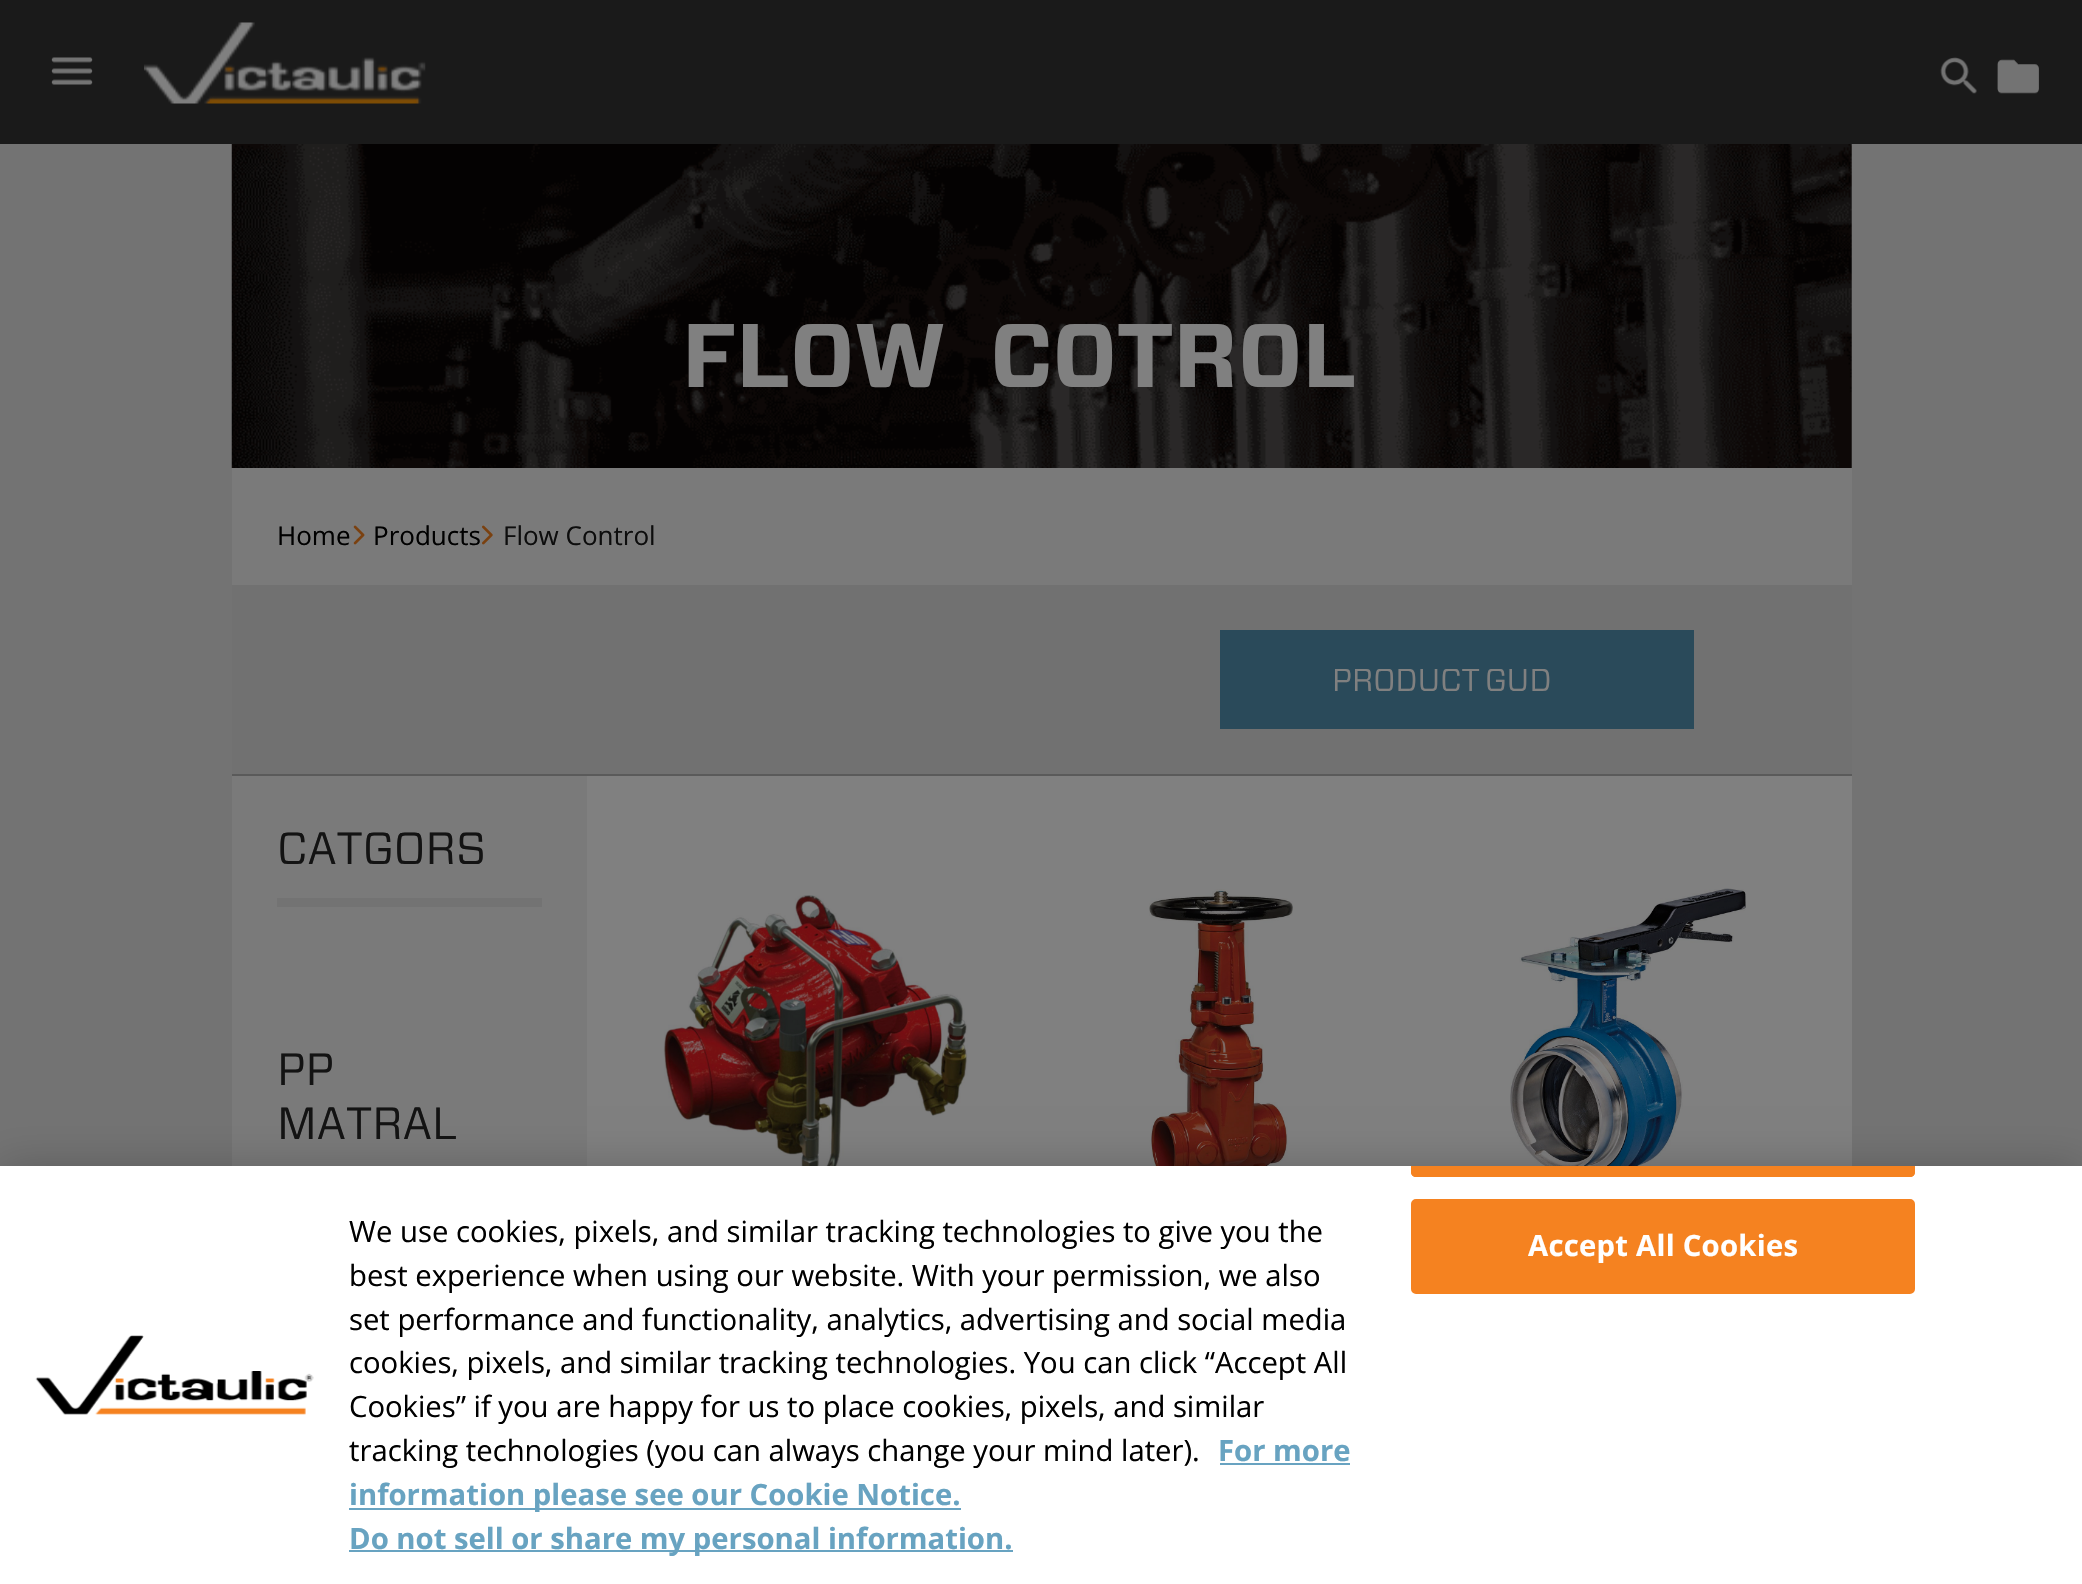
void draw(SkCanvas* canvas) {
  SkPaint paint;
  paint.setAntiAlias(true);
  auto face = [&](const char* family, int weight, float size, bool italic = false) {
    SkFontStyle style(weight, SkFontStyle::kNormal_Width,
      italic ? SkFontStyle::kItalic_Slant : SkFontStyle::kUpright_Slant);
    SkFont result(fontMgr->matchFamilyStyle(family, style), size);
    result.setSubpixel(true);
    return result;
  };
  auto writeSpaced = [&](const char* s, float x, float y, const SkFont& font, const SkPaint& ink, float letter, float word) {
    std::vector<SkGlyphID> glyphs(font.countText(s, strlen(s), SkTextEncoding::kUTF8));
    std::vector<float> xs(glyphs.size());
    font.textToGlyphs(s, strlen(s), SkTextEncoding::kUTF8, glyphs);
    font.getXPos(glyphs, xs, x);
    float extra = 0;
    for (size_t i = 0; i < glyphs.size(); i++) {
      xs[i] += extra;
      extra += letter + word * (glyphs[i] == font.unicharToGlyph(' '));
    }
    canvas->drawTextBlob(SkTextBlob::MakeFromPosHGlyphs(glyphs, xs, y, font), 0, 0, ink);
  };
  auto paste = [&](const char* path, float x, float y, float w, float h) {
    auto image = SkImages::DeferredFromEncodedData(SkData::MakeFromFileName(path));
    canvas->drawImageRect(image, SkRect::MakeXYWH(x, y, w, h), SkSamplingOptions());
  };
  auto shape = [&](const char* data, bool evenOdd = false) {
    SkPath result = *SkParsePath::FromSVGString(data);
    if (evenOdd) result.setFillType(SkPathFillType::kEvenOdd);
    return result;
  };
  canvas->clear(0xff737373);
  paint.setColor(0xff1a1a1a);
  canvas->drawRect(SkRect::MakeXYWH(0, 0, 2082, 144), paint);
  paste("img/1.png", 51, 57, 42, 28);
  paste("img/2.png", 144, 22, 282, 82);
  paste("img/3.png", 1940, 57, 37, 37);
  paste("img/4.png", 1997, 59, 42, 35);
  paint.setColor(0xff7a7a7a);
  canvas->drawRect(SkRect::MakeXYWH(232, 144, 1620, 1022), paint);
  paste("img/5.png", 231, 144, 1621, 324);
  paste("img/6.png", 353, 525, 12, 20);
  paste("img/7.png", 482, 525, 11, 20);
  {
    const struct { float x, y, w, h; SkColor color; } items[] = {
      {232, 585, 1620, 189, 0xff717171},
      {232, 774, 1620, 2, 0xff5a5a5a},
      {1220, 630, 474, 99, 0xff2a4a5a},
      {277, 898, 265, 9, 0xff737373},
      {587, 776, 1265, 390, 0xff808080},
    };
    for (auto [x, y, w, h, color] : items) {
      paint.setColor(color);
      canvas->drawRect(SkRect::MakeXYWH(x, y, w, h), paint);
    }
  }
  paste("img/8.png", 663, 895, 305, 271);
  paste("img/9.png", 1149, 889, 144, 277);
  paste("img/10.png", 1510, 888, 236, 278);
  paint.setColor(0x33000000);
  paint.setMaskFilter(SkMaskFilter::MakeBlur(kNormal_SkBlurStyle, 20));
  canvas->drawRect(SkRect::MakeXYWH(0, 1166, 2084, 418), paint);
  paint.setMaskFilter(nullptr);
  paint.setColor(0xffffffff);
  canvas->drawRect(SkRect::MakeXYWH(0, 1166, 2082, 418), paint);
  paste("img/11.png", 35, 1335, 279, 80);
  {
    const struct { float x, y, w, h; SkColor color; } items[] = {
      {1220, 1463, 130, 2, 0xff68a3c1},
      {349, 1508, 612, 2, 0xff68a3c1},
      {349, 1550, 664, 2, 0xff68a3c1},
    };
    for (auto [x, y, w, h, color] : items) {
      paint.setColor(color);
      canvas->drawRect(SkRect::MakeXYWH(x, y, w, h), paint);
    }
  }
  paint.setColor(0xfff58220);
  canvas->drawPath(shape("M1411 1166H1915V1172C1915 1175 1913 1177 1910 1177H1416C1413 1177 1411 1175 1411 1172Z"), paint);
  canvas->save();
  canvas->clipRect(SkRect::MakeXYWH(0, 1166, 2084, 418));
  paint.setStroke(true);
  paint.setStrokeWidth(2);
  canvas->drawRoundRect(SkRect::MakeXYWH(1412, 1050, 502, 126), 4, 4, paint);
  canvas->restore();
  paint.setStroke(false);
  canvas->drawRoundRect(SkRect::MakeXYWH(1412, 1200, 502, 93), 4, 4, paint);
  paint.setStroke(true);
  canvas->drawRoundRect(SkRect::MakeXYWH(1412, 1200, 502, 93), 4, 4, paint);
  auto f0 = face("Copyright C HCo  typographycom", 400, 90);
  paint.setStroke(false);
  paint.setColor(0xff808080);
  writeSpaced("FLOW CONTROL", 682, 387, f0, paint, 0, 23);
  auto f1 = face("Open Sans", 400, 26);
  paint.setColor(0xff000000);
  canvas->drawString("Home", 277, 545, f1, paint);
  canvas->drawString("Products", 373, 545, f1, paint);
  paint.setColor(0xff0d0d0d);
  canvas->drawString("Flow Control", 503, 545, f1, paint);
  auto f2 = face("Copyright C HCo  typographycom", 300, 31.5f);
  paint.setColor(0xff808080);
  writeSpaced("PRODUCT GUIDE", 1332, 691, f2, paint, 0, -2);
  auto f3 = face("Copyright C HCo  typographycom", 300, 45);
  paint.setColor(0xff131313);
  {
    const struct { const char* s; float x, y; } items[] = {
      {"CATEGORIES", 277, 864},
      {"PIPE", 277, 1085},
      {"MATERIAL", 277, 1139},
    };
    for (auto [s, x, y] : items) {
      canvas->drawString(s, x, y, f3, paint);
    }
  }
  auto f4 = face("Open Sans", 400, 29.25f);
  paint.setColor(0xff000000);
  {
    const struct { const char* s; float x, y; } items[] = {
      {"We use cookies, pixels, and similar tracking technologies to give you the", 349, 1242},
      {"best experience when using our website. With your permission, we also", 349, 1286},
      {"set performance and functionality, analytics, advertising and social media", 349, 1330},
      {"cookies, pixels, and similar tracking technologies. You can click “Accept All", 349, 1373},
      {"Cookies” if you are happy for us to place cookies, pixels, and similar", 349, 1417},
      {"tracking technologies (you can always change your mind later).", 349, 1461},
    };
    for (auto [s, x, y] : items) {
      canvas->drawString(s, x, y, f4, paint);
    }
  }
  auto f5 = face("Open Sans", 700, 29.25f);
  paint.setColor(0xff68a3c1);
  {
    const struct { const char* s; float x, y; } items[] = {
      {"For more", 1218, 1461},
      {"information please see our Cookie Notice.", 349, 1505},
      {"Do not sell or share my personal information.", 349, 1549},
    };
    for (auto [s, x, y] : items) {
      canvas->drawString(s, x, y, f5, paint);
    }
  }
  paint.setColor(0xffffffff);
  writeSpaced("Accept All Cookies", 1528, 1256, f5, paint, 0.25f, 0);
}
